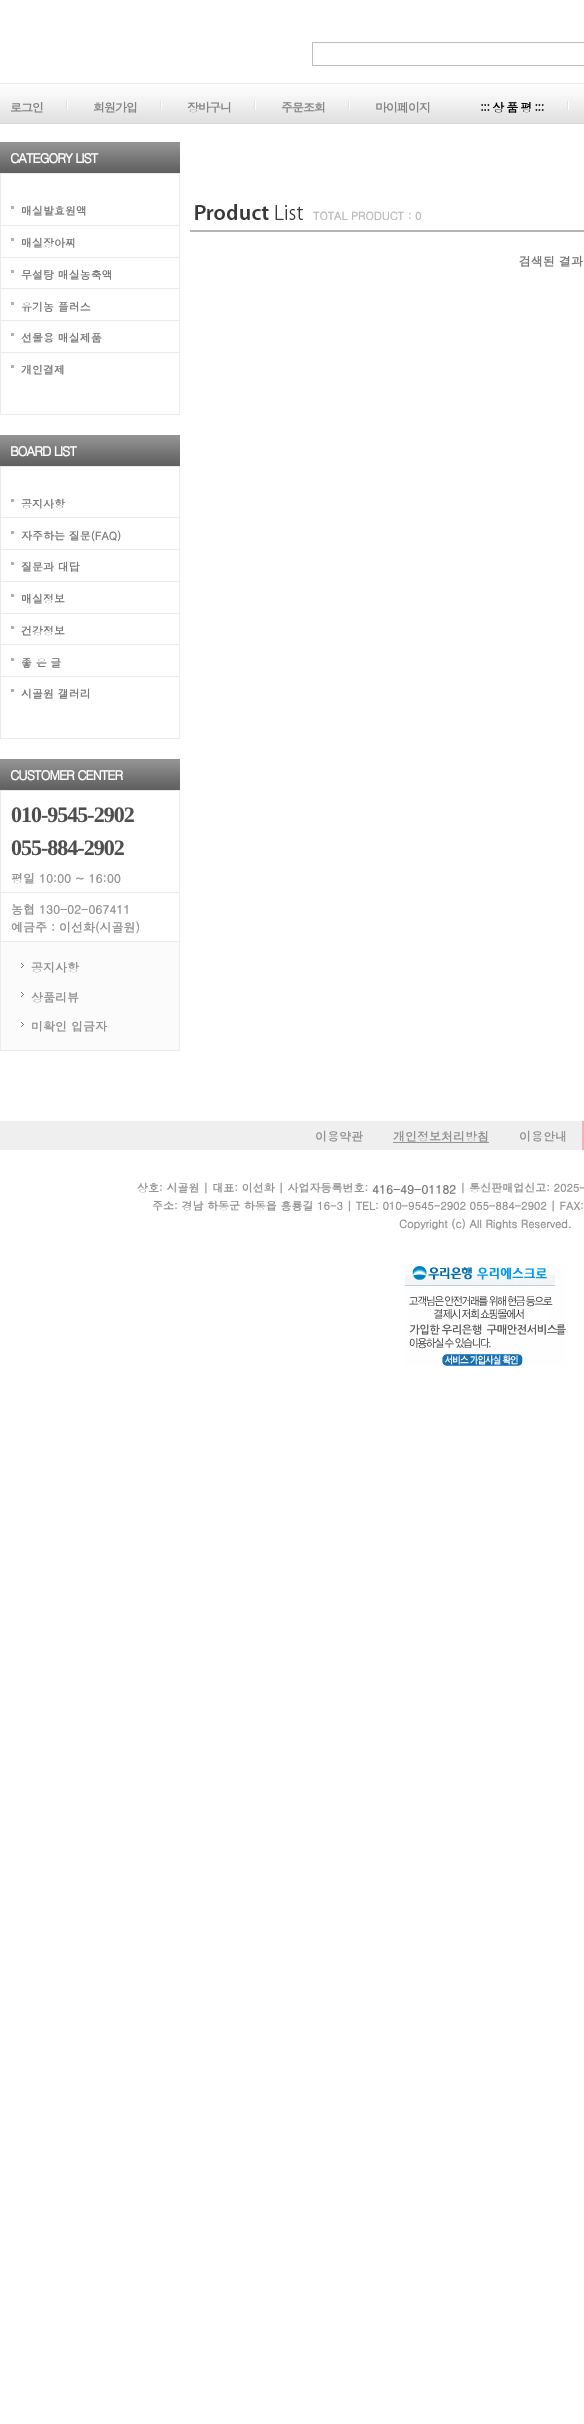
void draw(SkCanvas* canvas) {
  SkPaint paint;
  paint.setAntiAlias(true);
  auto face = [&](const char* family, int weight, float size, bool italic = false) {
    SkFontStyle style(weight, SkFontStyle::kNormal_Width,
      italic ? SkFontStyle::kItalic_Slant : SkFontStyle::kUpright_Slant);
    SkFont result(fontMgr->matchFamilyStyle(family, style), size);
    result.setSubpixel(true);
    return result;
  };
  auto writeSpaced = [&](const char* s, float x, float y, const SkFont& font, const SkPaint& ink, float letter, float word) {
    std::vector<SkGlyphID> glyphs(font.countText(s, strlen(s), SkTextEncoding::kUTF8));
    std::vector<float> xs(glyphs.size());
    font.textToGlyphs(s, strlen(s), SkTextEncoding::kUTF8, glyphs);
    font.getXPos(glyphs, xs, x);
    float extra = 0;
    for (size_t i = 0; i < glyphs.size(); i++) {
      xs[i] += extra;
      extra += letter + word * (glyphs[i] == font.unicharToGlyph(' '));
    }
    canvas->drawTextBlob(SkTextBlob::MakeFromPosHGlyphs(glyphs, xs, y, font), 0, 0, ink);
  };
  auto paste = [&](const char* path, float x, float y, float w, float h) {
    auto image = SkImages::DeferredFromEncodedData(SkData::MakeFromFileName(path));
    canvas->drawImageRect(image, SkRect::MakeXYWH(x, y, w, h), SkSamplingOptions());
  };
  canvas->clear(0xffffffff);
  paste("img/1.png", 0, 83, 278, 41);
  paste("img/2.png", 278, 83, 306, 41);
  paint.setStroke(true);
  paint.setStrokeWidth(1);
  paint.setColor(0xffbebebe);
  canvas->drawRect(SkRect::MakeXYWH(312.5f, 42.5f, 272, 23), paint);
  paste("img/3.png", 66, 101, 2, 9);
  paste("img/3.png", 160, 101, 2, 9);
  paste("img/3.png", 254, 101, 2, 9);
  paste("img/3.png", 348, 101, 2, 9);
  paste("img/3.png", 567, 101, 2, 9);
  paste("img/4.png", 0, 142, 180, 31);
  paint.setColor(0xffebebeb);
  canvas->drawRect(SkRect::MakeXYWH(0.5f, 173.5f, 179, 241), paint);
  paint.setStroke(false);
  {
    const struct { float x, y, w, h; SkColor color; } items[] = {
      {11, 206, 3, 3, 0xffb0b0b0},
      {11, 238, 3, 3, 0xffb0b0b0},
      {1, 225, 178, 1, 0xffebebeb},
      {11, 270, 3, 3, 0xffb0b0b0},
      {1, 257, 178, 1, 0xffebebeb},
      {11, 302, 3, 3, 0xffb0b0b0},
      {1, 288, 178, 1, 0xffebebeb},
      {11, 333, 3, 3, 0xffb0b0b0},
      {1, 320, 178, 1, 0xffebebeb},
      {11, 365, 3, 3, 0xffb0b0b0},
      {1, 352, 178, 1, 0xffebebeb},
    };
    for (auto [x, y, w, h, color] : items) {
      paint.setColor(color);
      canvas->drawRect(SkRect::MakeXYWH(x, y, w, h), paint);
    }
  }
  paste("img/4.png", 0, 435, 180, 31);
  paint.setStroke(true);
  canvas->drawRect(SkRect::MakeXYWH(0.5f, 466.5f, 179, 272), paint);
  paint.setStroke(false);
  {
    const struct { float x, y, w, h; SkColor color; } items[] = {
      {11, 499, 3, 3, 0xffb0b0b0},
      {11, 531, 3, 3, 0xffb0b0b0},
      {1, 517, 178, 1, 0xffebebeb},
      {11, 562, 3, 3, 0xffb0b0b0},
      {1, 549, 178, 1, 0xffebebeb},
      {11, 594, 3, 3, 0xffb0b0b0},
      {1, 581, 178, 1, 0xffebebeb},
      {11, 626, 3, 3, 0xffb0b0b0},
      {1, 613, 178, 1, 0xffebebeb},
      {11, 658, 3, 3, 0xffb0b0b0},
      {1, 644, 178, 1, 0xffebebeb},
      {11, 689, 3, 3, 0xffb0b0b0},
      {1, 676, 178, 1, 0xffebebeb},
    };
    for (auto [x, y, w, h, color] : items) {
      paint.setColor(color);
      canvas->drawRect(SkRect::MakeXYWH(x, y, w, h), paint);
    }
  }
  paste("img/4.png", 0, 759, 180, 31);
  paint.setStroke(true);
  canvas->drawRect(SkRect::MakeXYWH(0.5f, 790.5f, 179, 151), paint);
  paint.setStroke(false);
  {
    const struct { float x, y, w, h; SkColor color; } items[] = {
      {1, 892, 178, 1, 0xffebebeb},
      {1, 942, 178, 108, 0xfffbfbfb},
      {179, 942, 1, 109, 0xffebebeb},
      {0, 1050, 180, 1, 0xffebebeb},
      {0, 942, 1, 109, 0xffebebeb},
    };
    for (auto [x, y, w, h, color] : items) {
      paint.setColor(color);
      canvas->drawRect(SkRect::MakeXYWH(x, y, w, h), paint);
    }
  }
  paste("img/5.png", 21, 963, 3, 5);
  paste("img/5.png", 21, 992, 3, 5);
  paste("img/5.png", 21, 1022, 3, 5);
  paint.setColor(0xffb5b5b5);
  canvas->drawRect(SkRect::MakeXYWH(190, 230, 394, 2), paint);
  paste("img/6.png", 195, 204, 108, 16);
  {
    const struct { float x, y, w, h; SkColor color; } items[] = {
      {0, 1121, 582, 29, 0xffefefef},
      {393, 1142, 96, 1, 0xff929292},
      {582, 1121, 2, 29, 0xffffabbc},
    };
    for (auto [x, y, w, h, color] : items) {
      paint.setColor(color);
      canvas->drawRect(SkRect::MakeXYWH(x, y, w, h), paint);
    }
  }
  paste("img/7.png", 405, 1266, 161, 100);
  auto f0 = face("Dotum", 700, 12);
  paint.setColor(0xff848484);
  {
    const struct { const char* s; float x, y; } items[] = {
      {"로그인", 10, 112},
      {"회원가입", 93, 112},
      {"장바구니", 187, 112},
      {"주문조회", 281, 112},
      {"마이페이지", 375, 112},
    };
    for (auto [s, x, y] : items) {
      writeSpaced(s, x, y, f0, paint, -1, 0);
    }
  }
  paint.setColor(0xff000000);
  writeSpaced("::: 상 품 평 :::", 480, 112, f0, paint, -1, 0);
  auto f1 = face("Dotum", 700, 13);
  paint.setColor(0xffffffff);
  writeSpaced("CATEGORY LIST", 10, 163, f1, paint, -1, 0);
  auto f2 = face("Dotum", 700, 11);
  paint.setColor(0xff787878);
  {
    const struct { const char* s; float x, y; } items[] = {
      {"매실발효원액", 21, 215},
      {"매실장아찌", 21, 247},
      {"무설탕 매실농축액", 21, 279},
      {"유기농 플러스", 21, 311},
      {"선물용 매실제품", 21, 342},
      {"개인결제", 21, 374},
    };
    for (auto [s, x, y] : items) {
      canvas->drawString(s, x, y, f2, paint);
    }
  }
  paint.setColor(0xffffffff);
  writeSpaced("BOARD LIST", 10, 456, f1, paint, -1, 0);
  paint.setColor(0xff787878);
  {
    const struct { const char* s; float x, y; } items[] = {
      {"공지사항", 21, 508},
      {"자주하는 질문(FAQ)", 21, 540},
      {"질문과 대답", 21, 571},
      {"매실정보", 21, 603},
      {"건강정보", 21, 635},
      {"좋 은 글", 21, 667},
      {"시골원 갤러리", 21, 698},
    };
    for (auto [s, x, y] : items) {
      canvas->drawString(s, x, y, f2, paint);
    }
  }
  paint.setColor(0xffffffff);
  writeSpaced("CUSTOMER CENTER", 10, 780, f1, paint, -1, 0);
  auto f3 = face("Liberation Serif", 700, 22);
  paint.setColor(0xff4f4f4f);
  writeSpaced("010-9545-2902", 11, 822, f3, paint, -1, 0);
  writeSpaced("055-884-2902", 11, 855, f3, paint, -1, 0);
  paint.setColor(0xff929292);
  {
    const struct { const char* s; float x, y; } items[] = {
      {"평일 10:00 ~ 16:00", 11, 883},
      {"농협 130-02-067411", 11, 914},
      {"예금주 : 이선화(시골원)", 11, 932},
      {"공지사항", 31, 972},
      {"상품리뷰", 31, 1002},
      {"미확인 입금자", 31, 1031},
    };
    for (auto [s, x, y] : items) {
      canvas->drawString(s, x, y, f0, paint);
    }
  }
  canvas->save();
  canvas->clipRect(SkRect::MakeXYWH(303, 204, 119, 16));
  paint.setColor(0xffb8b8b8);
  canvas->drawString("TOTAL PRODUCT : 0", 313, 220, f2, paint);
  canvas->restore();
  paint.setColor(0xff787878);
  canvas->drawString("검색된 결과", 519, 266, f0, paint);
  paint.setColor(0xff929292);
  {
    const struct { const char* s; float x, y; } items[] = {
      {"이용약관", 315, 1141},
      {"개인정보처리방침", 393, 1141},
      {"이용안내", 519, 1141},
    };
    for (auto [s, x, y] : items) {
      canvas->drawString(s, x, y, f0, paint);
    }
  }
  canvas->drawString("상호: 시골원 | 대표: 이선화 | 사업자등록번호:", 137, 1192, f2, paint);
  paint.setColor(0xff787878);
  canvas->drawString("416-49-01182", 372, 1194, f0, paint);
  paint.setColor(0xff929292);
  {
    const struct { const char* s; float x, y; } items[] = {
      {"| 통신판매업신고: 2025-", 460, 1192},
      {"주소: 경남 하동군 하동읍 흥룡길 16-3 | TEL: 010-9545-2902 055-884-2902 | FAX:", 152, 1210},
      {"Copyright (c) All Rights Reserved.", 399, 1228},
    };
    for (auto [s, x, y] : items) {
      canvas->drawString(s, x, y, f2, paint);
    }
  }
}
